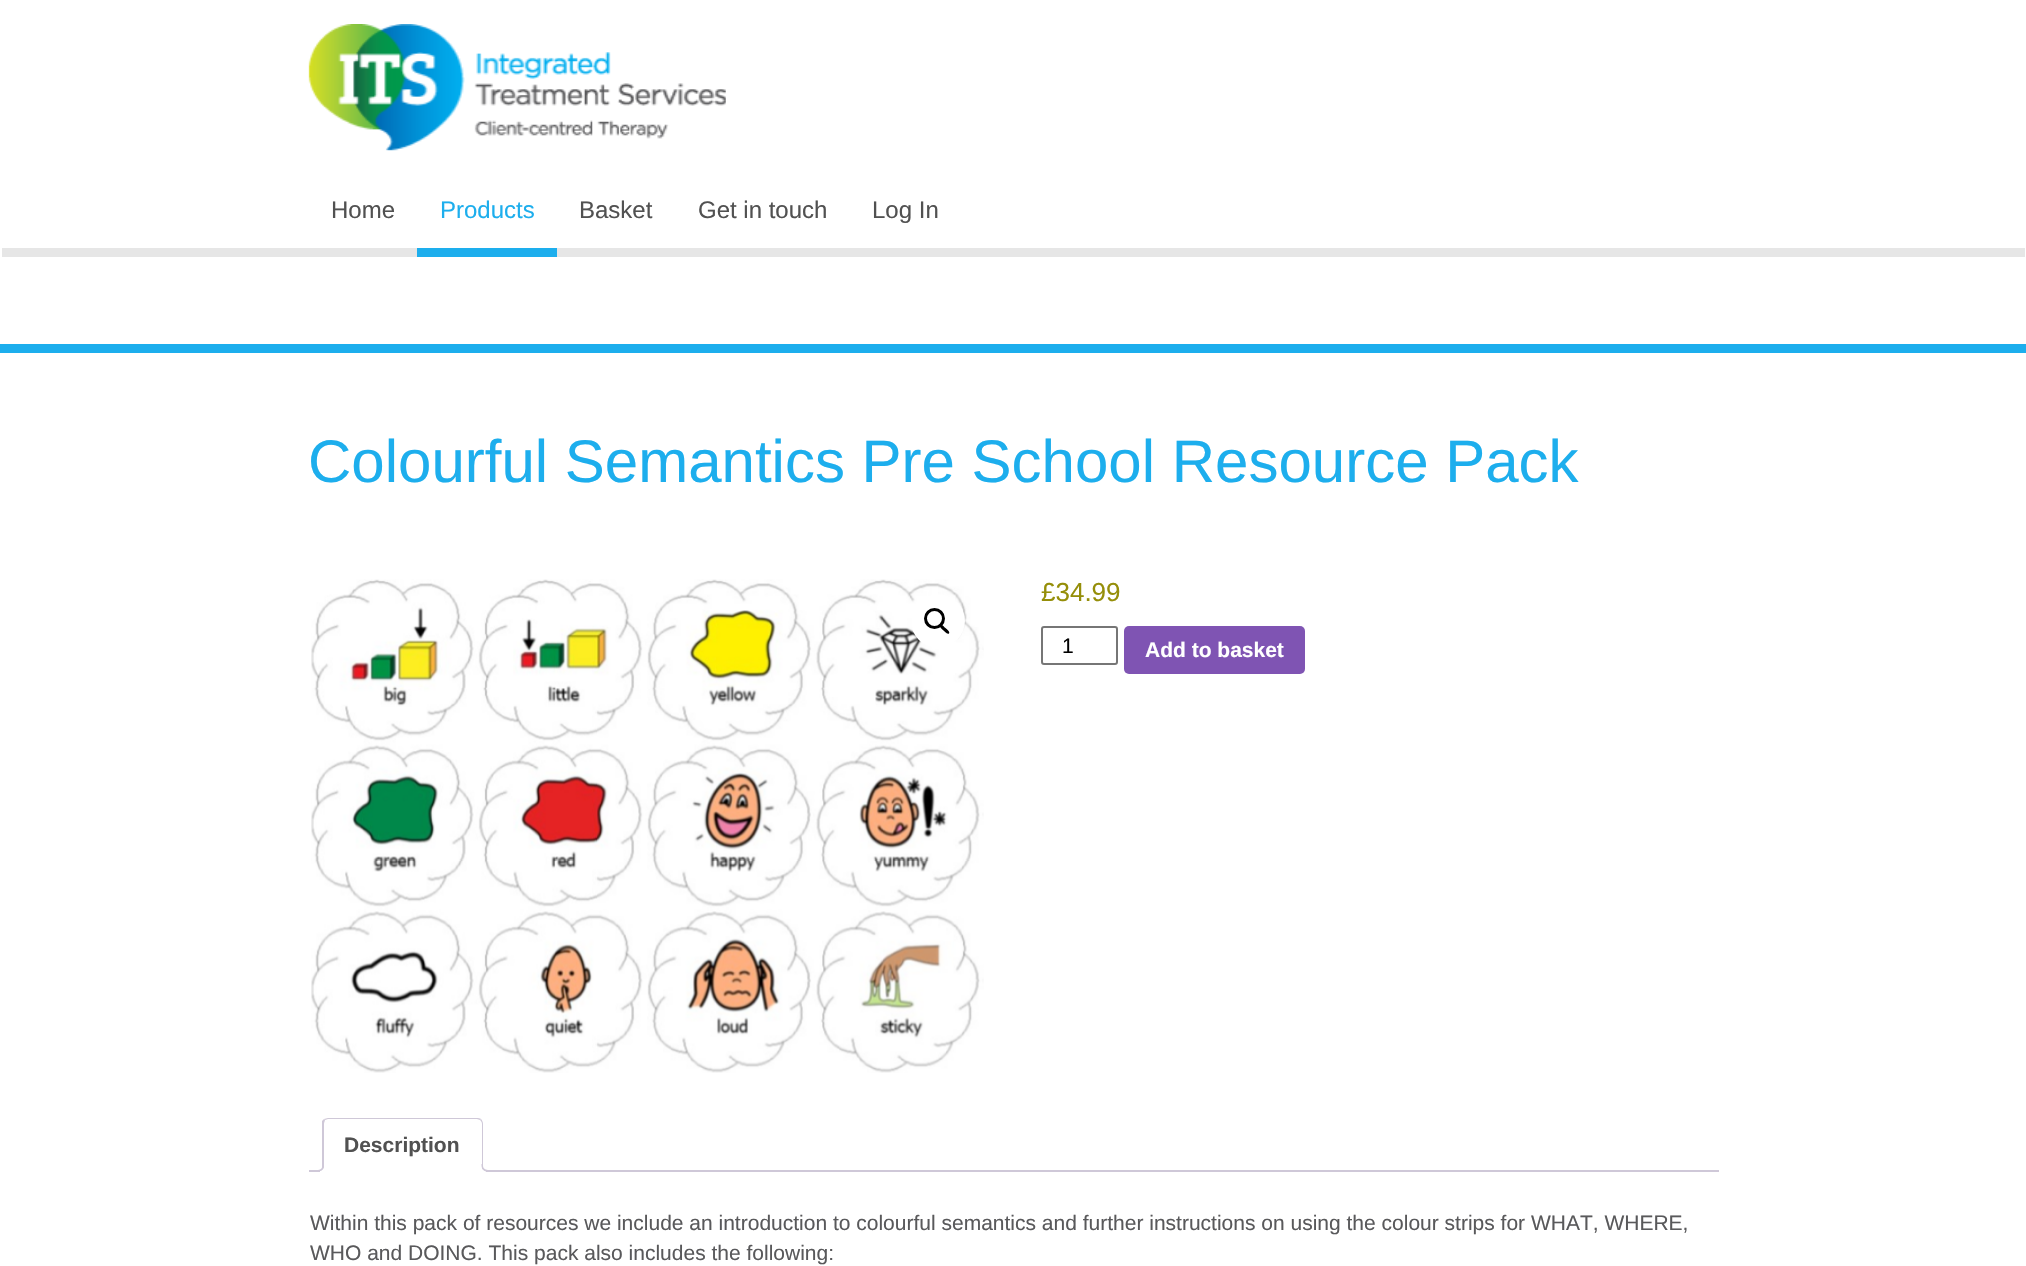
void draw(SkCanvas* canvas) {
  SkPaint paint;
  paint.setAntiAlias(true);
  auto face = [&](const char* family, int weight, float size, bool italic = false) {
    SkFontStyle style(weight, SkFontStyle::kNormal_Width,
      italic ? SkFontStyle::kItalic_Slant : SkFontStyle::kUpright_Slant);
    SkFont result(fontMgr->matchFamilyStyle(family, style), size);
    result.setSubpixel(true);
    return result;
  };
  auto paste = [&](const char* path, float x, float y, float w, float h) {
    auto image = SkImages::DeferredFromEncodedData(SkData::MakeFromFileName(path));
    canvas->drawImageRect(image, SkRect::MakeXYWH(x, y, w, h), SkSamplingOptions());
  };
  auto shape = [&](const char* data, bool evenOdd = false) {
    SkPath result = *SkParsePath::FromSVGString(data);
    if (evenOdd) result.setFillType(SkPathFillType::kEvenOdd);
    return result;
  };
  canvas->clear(0xffffffff);
  paste("img/1.png", 308, 24, 418, 127);
  {
    const struct { float x, y, w, h; SkColor color; } items[] = {
      {2, 248, 2023, 9, 0xffe6e6e6},
      {417, 248, 140, 9, 0xff1daeed},
      {0, 344, 2026, 9, 0xff1daeed},
    };
    for (auto [x, y, w, h, color] : items) {
      paint.setColor(color);
      canvas->drawRect(SkRect::MakeXYWH(x, y, w, h), paint);
    }
  }
  paste("img/2.png", 311, 579, 673, 494);
  paint.setColor(0xffffffff);
  canvas->drawCircle(938, 621, 27, paint);
  paint.setStroke(true);
  paint.setStrokeWidth(3);
  paint.setColor(0xff000000);
  canvas->drawCircle(934.5f, 618.5f, 9, paint);
  paint.setStroke(false);
  canvas->drawPath(shape("M940.5 625C942 623.5 944.5 627.5 945.5 628C946.5 629 950.5 632 949 633.5C947 635 944.5 631 943.5 630.5C942.5 629.5 938.5 626.5 940.5 625Z"), paint);
  paint.setStroke(true);
  paint.setStrokeWidth(2);
  paint.setColor(0xff767676);
  canvas->drawRoundRect(SkRect::MakeXYWH(1042, 627, 75, 37), 2, 2, paint);
  paint.setStroke(false);
  paint.setColor(0xff7f54b3);
  canvas->drawRoundRect(SkRect::MakeXYWH(1124, 626, 181, 48), 5, 5, paint);
  paint.setColor(0xffcfc8d8);
  canvas->drawRect(SkRect::MakeXYWH(309, 1170, 1410, 2), paint);
  paint.setColor(0xffffffff);
  canvas->drawPath(shape("M329 1118H477C480.5 1118 483 1120.5 483 1124V1172H323V1124C323 1120.5 325.5 1118 329 1118Z"), paint);
  paint.setColor(0xffcfc8d8);
  canvas->drawPath(shape("M328 1118L324 1119L325 1120L328 1119H477L480 1120L481 1119C480 1118 478 1118 477 1118Z"), paint);
  canvas->drawPath(shape("M481 1119C482 1120 483 1122 483 1124V1172L482 1170V1124C482 1122 481 1121 480 1120Z"), paint);
  paint.setColor(0xffffffff);
  canvas->drawPath(shape("M483 1172L482 1170H324L322 1172Z"), paint);
  paint.setColor(0xffcfc8d8);
  canvas->drawPath(shape("M322 1172L324 1170V1124C324 1122 325 1121 325 1120L324 1119L322 1121Z"), paint);
  canvas->save();
  canvas->clipRect(SkRect::MakeXYWH(309, 1118, 1410, 54));
  paint.setColor(0xffffffff);
  canvas->drawPath(shape("M320 1171V1175C325.5 1175 327 1172 327 1167H324C323.5 1169 322 1170.5 320 1171Z"), paint);
  canvas->restore();
  paint.setColor(0xffcfc8d8);
  canvas->drawPath(shape("M316.5 1164H324C324 1169.5 322 1171.5 316.5 1171.5ZM316.5 1164H322.5C322.5 1168.5 321 1170 316.5 1170Z", true), paint);
  canvas->save();
  canvas->clipRect(SkRect::MakeXYWH(309, 1118, 1410, 54));
  paint.setColor(0xffffffff);
  canvas->drawPath(shape("M479 1167C479 1172 480.5 1175 486 1175V1171.5C484 1171 482 1169 481.5 1167Z"), paint);
  canvas->restore();
  paint.setColor(0xffcfc8d8);
  canvas->drawPath(shape("M481.5 1164H489V1171.5C485 1171.5 481.5 1170 481.5 1165.5ZM483 1164H489V1170C486 1170 483 1169 483 1165.5Z", true), paint);
  auto f0 = face("Liberation Sans", 400, 24);
  paint.setColor(0xff515151);
  canvas->drawString("Home", 331, 218, f0, paint);
  paint.setColor(0xff1daeed);
  canvas->drawString("Products", 440, 218, f0, paint);
  paint.setColor(0xff515151);
  {
    const struct { const char* s; float x, y; } items[] = {
      {"Basket", 579, 218},
      {"Get in touch", 698, 218},
      {"Log In", 872, 218},
    };
    for (auto [s, x, y] : items) {
      canvas->drawString(s, x, y, f0, paint);
    }
  }
  auto f1 = face("Liberation Sans", 400, 60);
  paint.setColor(0xff1daeed);
  canvas->drawString("Colourful Semantics Pre School Resource Pack", 308, 482, f1, paint);
  auto f2 = face("Liberation Sans", 400, 26);
  paint.setColor(0xff958e09);
  canvas->drawString("£34.99", 1041, 601, f2, paint);
  auto f3 = face("Liberation Sans", 400, 21);
  paint.setColor(0xff000000);
  canvas->drawString("1", 1062, 653, f3, paint);
  auto f4 = face("Liberation Sans", 700, 21);
  paint.setColor(0xffffffff);
  canvas->drawString("Add to basket", 1145, 657, f4, paint);
  paint.setColor(0xff515151);
  canvas->drawString("Description", 344, 1152, f4, paint);
  paint.setColor(0xff59595b);
  canvas->drawString("Within this pack of resources we include an introduction to colourful semantics and further instructions on using the colour strips for WHAT, WHERE,", 310, 1230, f3, paint);
  canvas->drawString("WHO and DOING. This pack also includes the following:", 310, 1260, f3, paint);
}
